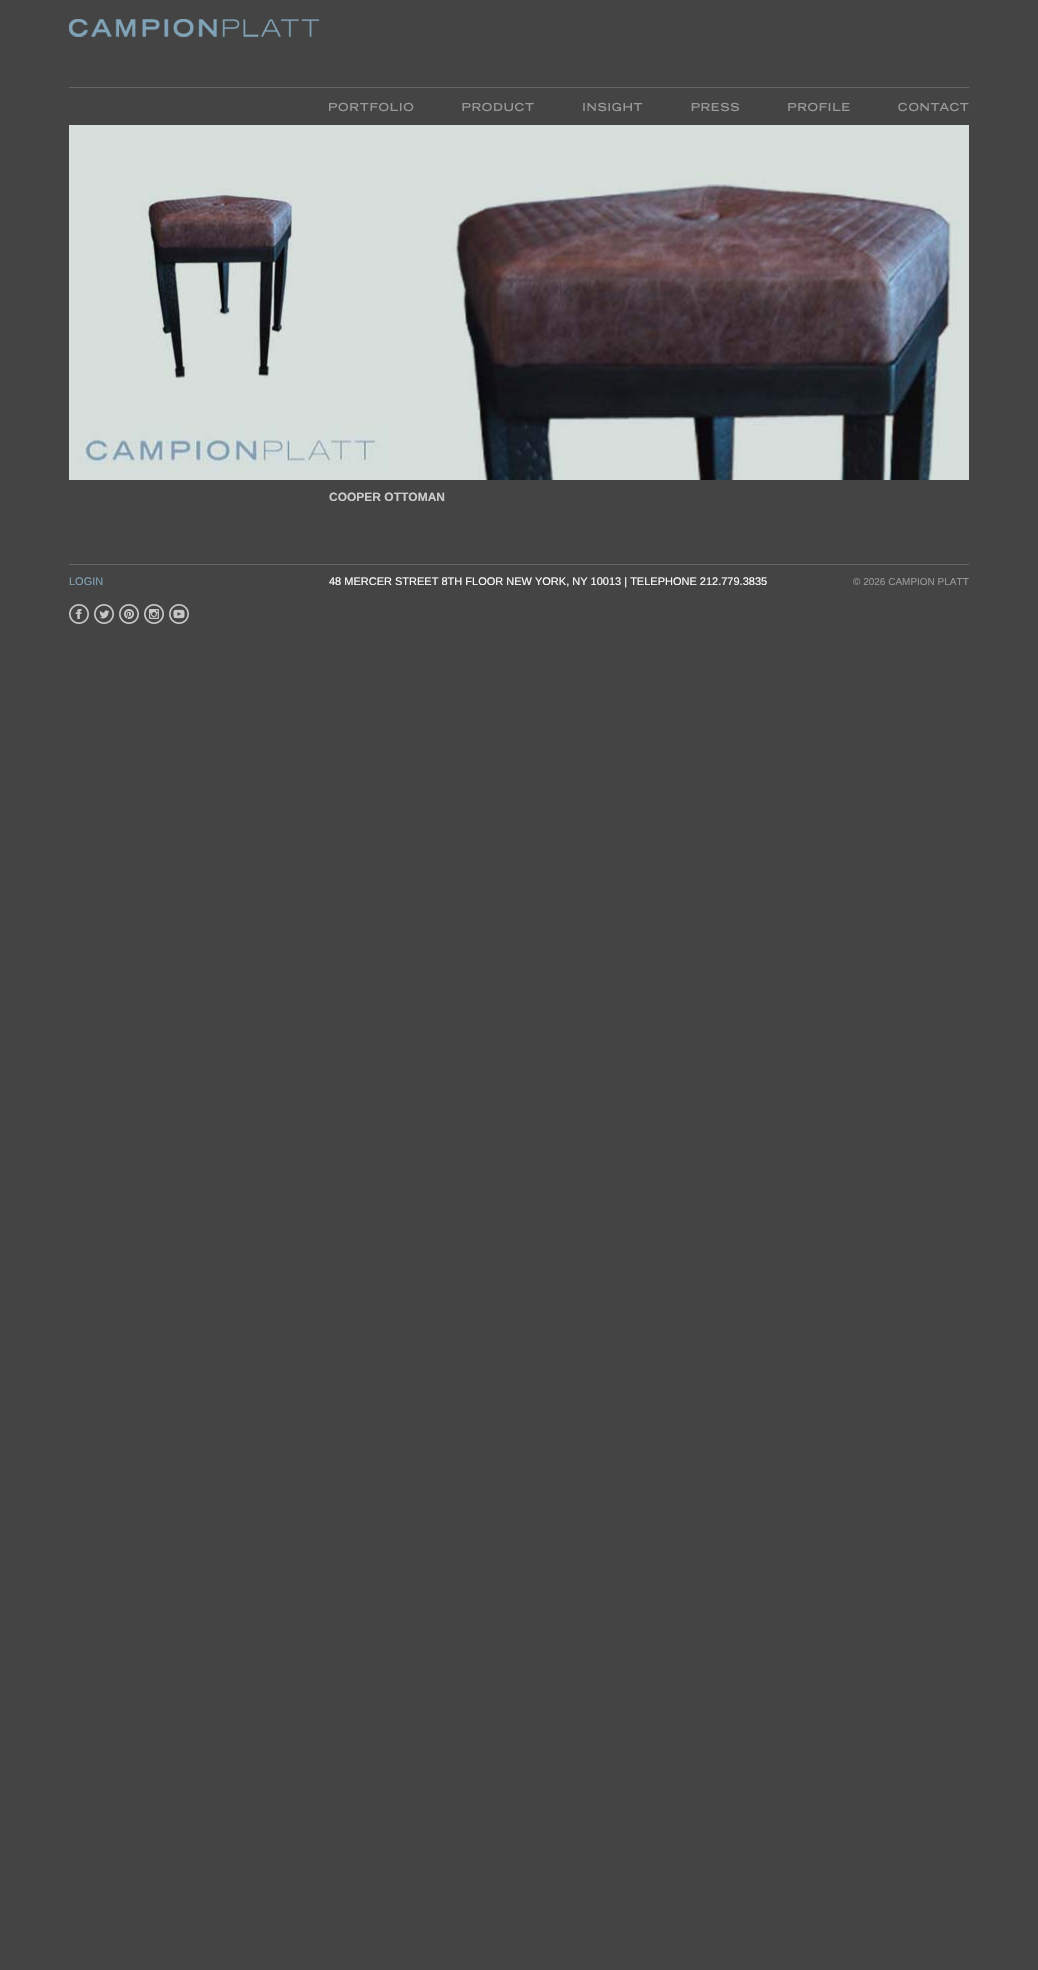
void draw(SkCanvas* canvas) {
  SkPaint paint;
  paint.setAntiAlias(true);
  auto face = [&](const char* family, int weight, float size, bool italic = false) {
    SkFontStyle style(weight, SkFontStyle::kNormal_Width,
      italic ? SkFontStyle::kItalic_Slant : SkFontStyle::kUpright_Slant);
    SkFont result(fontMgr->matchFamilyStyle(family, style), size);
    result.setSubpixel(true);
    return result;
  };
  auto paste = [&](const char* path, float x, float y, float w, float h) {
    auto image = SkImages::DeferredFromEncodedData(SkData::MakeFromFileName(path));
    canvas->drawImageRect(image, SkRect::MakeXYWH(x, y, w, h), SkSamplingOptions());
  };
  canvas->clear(0xff444444);
  paint.setColor(0xff666666);
  canvas->drawRect(SkRect::MakeXYWH(69, 87, 900, 1), paint);
  paste("img/1.png", 69, 19, 250, 18);
  paste("img/2.png", 329, 100, 85, 12);
  paste("img/3.png", 439, 100, 95, 12);
  paste("img/4.png", 559, 100, 84, 12);
  paste("img/5.png", 668, 100, 71, 12);
  paste("img/6.png", 764, 100, 86, 12);
  paste("img/7.png", 874, 100, 95, 12);
  paste("img/8.png", 69, 125, 900, 355);
  canvas->drawRect(SkRect::MakeXYWH(69, 564, 900, 1), paint);
  paste("img/9.png", 69, 604, 20, 20);
  paste("img/10.png", 94, 604, 20, 20);
  paste("img/11.png", 119, 604, 20, 20);
  paste("img/12.png", 144, 604, 20, 20);
  paste("img/13.png", 169, 604, 20, 20);
  auto f0 = face("Liberation Sans", 700, 12);
  paint.setColor(0xffcccccc);
  canvas->drawString("COOPER OTTOMAN", 329, 501, f0, paint);
  auto f1 = face("Liberation Sans", 400, 11);
  paint.setColor(0xff80a3b7);
  canvas->drawString("LOGIN", 69, 585, f1, paint);
  paint.setColor(0xffffffff);
  canvas->drawString("48 MERCER STREET 8TH FLOOR NEW YORK, NY 10013 | TELEPHONE 212.779.3835", 329, 585, f1, paint);
  auto f2 = face("Liberation Sans", 400, 10);
  paint.setColor(0xff999999);
  canvas->drawString("© 2026 CAMPION PLATT", 853, 585, f2, paint);
}
